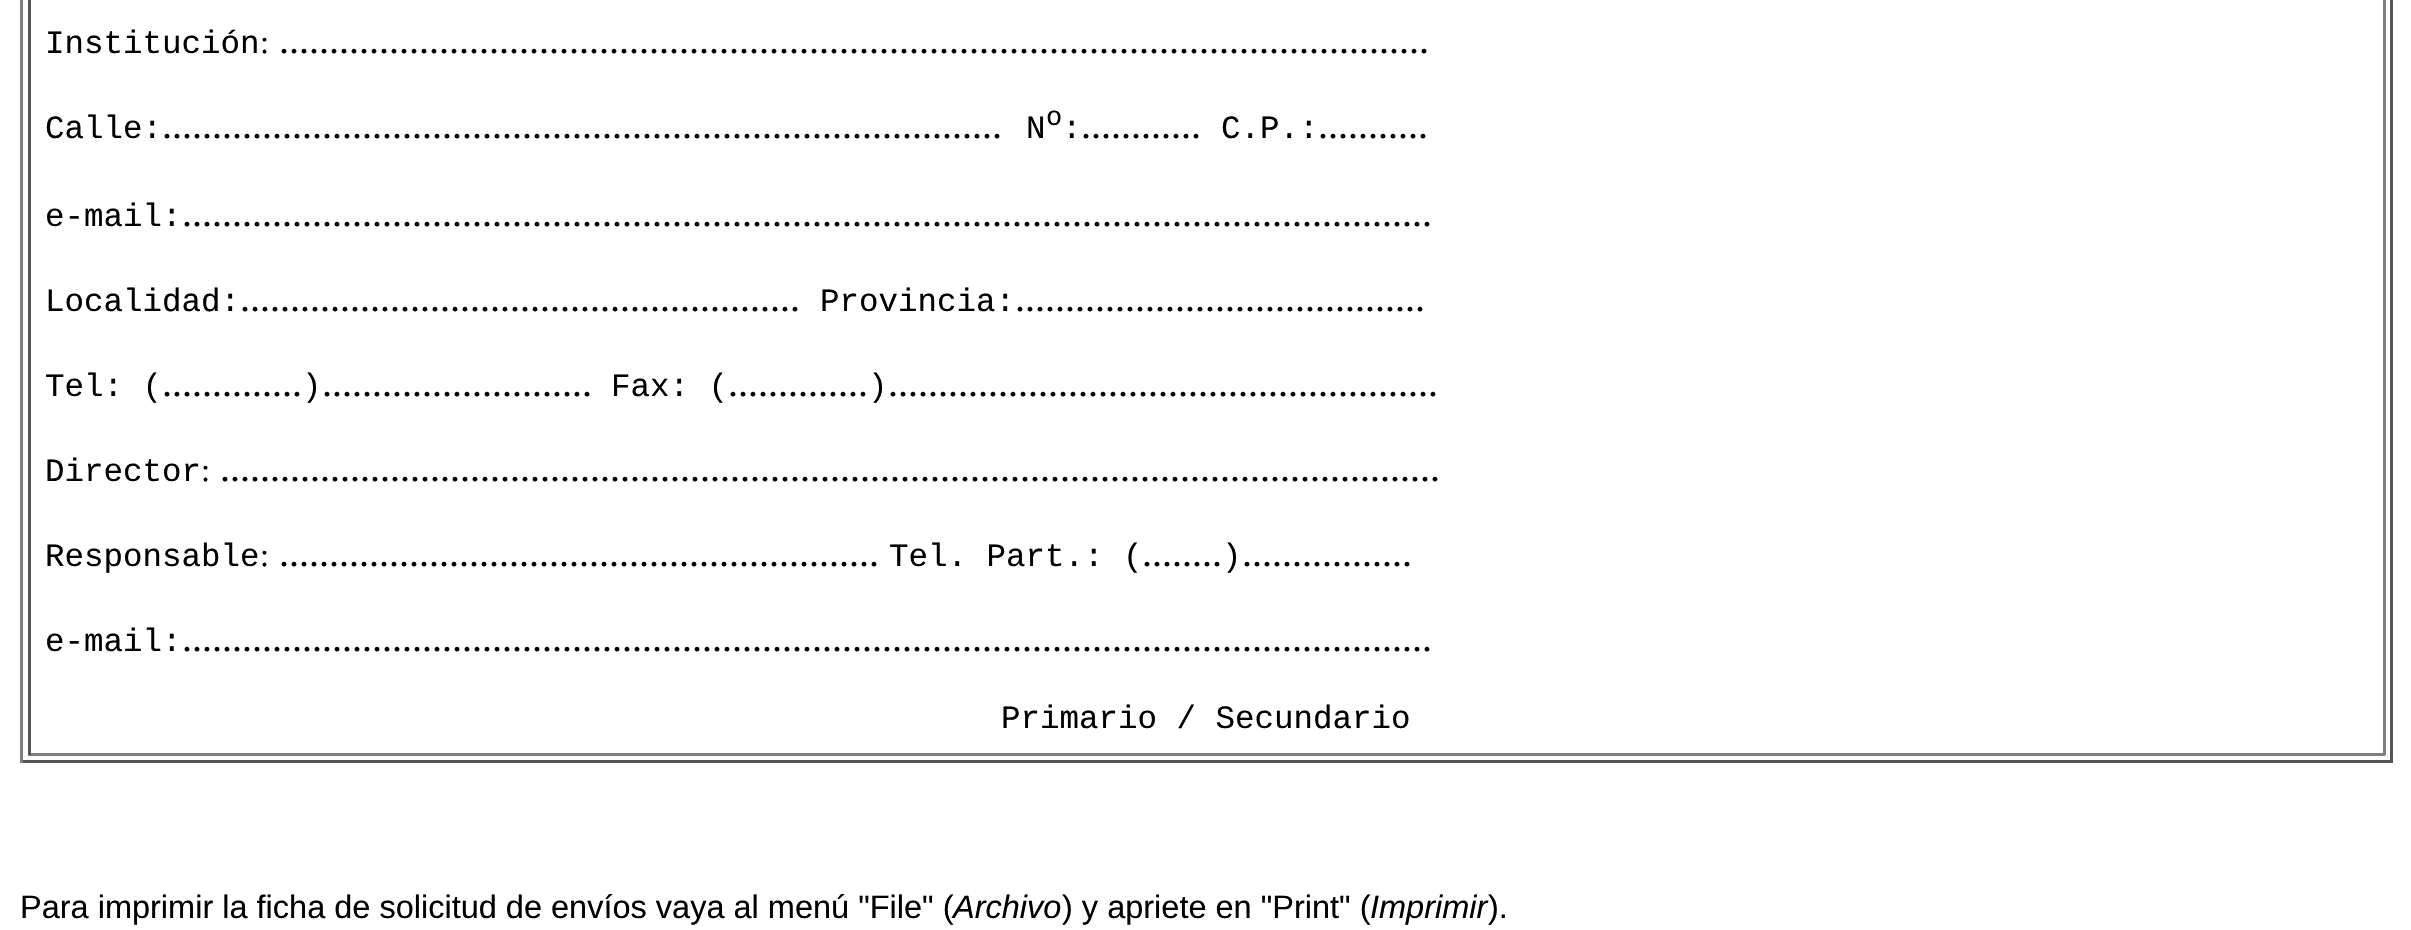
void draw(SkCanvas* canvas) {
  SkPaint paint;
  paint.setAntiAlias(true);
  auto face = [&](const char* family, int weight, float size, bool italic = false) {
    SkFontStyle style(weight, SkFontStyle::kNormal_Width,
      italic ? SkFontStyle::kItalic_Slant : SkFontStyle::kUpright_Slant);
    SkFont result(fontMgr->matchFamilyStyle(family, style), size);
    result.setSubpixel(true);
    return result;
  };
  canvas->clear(0xffffffff);
  {
    const struct { float x, y, w, h; SkColor color; } items[] = {
      {2390, 0, 3, 763, 0xff555555},
      {20, 760, 2373, 3, 0xff555555},
      {20, 0, 3, 763, 0xff808080},
      {2383, 0, 3, 755, 0xff808080},
      {28, 753, 2357, 3, 0xff808080},
      {28, 0, 3, 755, 0xff555555},
    };
    for (auto [x, y, w, h, color] : items) {
      paint.setColor(color);
      canvas->drawRect(SkRect::MakeXYWH(x, y, w, h), paint);
    }
  }
  auto f0 = face("Liberation Mono", 400, 32.5f);
  paint.setColor(0xff000000);
  canvas->drawString("Institución", 45, 53, f0, paint);
  auto f1 = face("Liberation Serif", 400, 32.5f);
  canvas->drawString(":", 260, 53, f1, paint);
  auto f2 = face("Liberation Serif", 400, 40);
  canvas->drawString("...................................................................................................................", 279, 53, f2, paint);
  canvas->drawString("Calle:", 45, 138, f0, paint);
  canvas->drawString("....................................................................................", 162, 138, f2, paint);
  canvas->drawString("N", 1026, 138, f0, paint);
  auto f3 = face("Liberation Mono", 400, 27);
  canvas->drawString("o", 1046, 125, f3, paint);
  canvas->drawString(":", 1062, 138, f0, paint);
  canvas->drawString("............", 1081, 138, f2, paint);
  canvas->drawString("C.P.:", 1221, 138, f0, paint);
  canvas->drawString("...........", 1318, 138, f2, paint);
  canvas->drawString("e-mail:", 45, 226, f0, paint);
  canvas->drawString(".............................................................................................................................", 182, 226, f2, paint);
  canvas->drawString("Localidad:", 45, 311, f0, paint);
  canvas->drawString("........................................................", 240, 311, f2, paint);
  canvas->drawString("Provincia:", 820, 311, f0, paint);
  canvas->drawString(".........................................", 1015, 311, f2, paint);
  canvas->drawString("Tel: (", 45, 396, f0, paint);
  canvas->drawString("..............", 162, 396, f2, paint);
  canvas->drawString(")", 302, 396, f0, paint);
  canvas->drawString("...........................", 322, 396, f2, paint);
  canvas->drawString("Fax: (", 611, 396, f0, paint);
  canvas->drawString("..............", 728, 396, f2, paint);
  canvas->drawString(")", 868, 396, f0, paint);
  canvas->drawString(".......................................................", 888, 396, f2, paint);
  canvas->drawString("Director", 45, 481, f0, paint);
  canvas->drawString(":", 201, 481, f1, paint);
  canvas->drawString("..........................................................................................................................", 220, 481, f2, paint);
  canvas->drawString("Responsable", 45, 566, f0, paint);
  canvas->drawString(":", 260, 566, f1, paint);
  canvas->drawString("............................................................", 279, 566, f2, paint);
  canvas->drawString("Tel. Part.: (", 889, 566, f0, paint);
  canvas->drawString("........", 1142, 566, f2, paint);
  canvas->drawString(")", 1222, 566, f0, paint);
  canvas->drawString(".................", 1242, 566, f2, paint);
  canvas->drawString("e-mail:", 45, 651, f0, paint);
  canvas->drawString(".............................................................................................................................", 182, 651, f2, paint);
  canvas->drawString("Primario / Secundario", 1001, 728, f0, paint);
  auto f4 = face("Liberation Sans", 400, 32.5f);
  canvas->drawString("Para imprimir la ficha de solicitud de envíos vaya al menú \"File\" (", 20, 918, f4, paint);
  auto f5 = face("Liberation Sans", 400, 32.5f, true);
  canvas->drawString("Archivo", 953, 918, f5, paint);
  canvas->drawString(") y apriete en \"Print\" (", 1062, 918, f4, paint);
  canvas->drawString("Imprimir", 1370, 918, f5, paint);
  canvas->drawString(").", 1488, 918, f4, paint);
}
